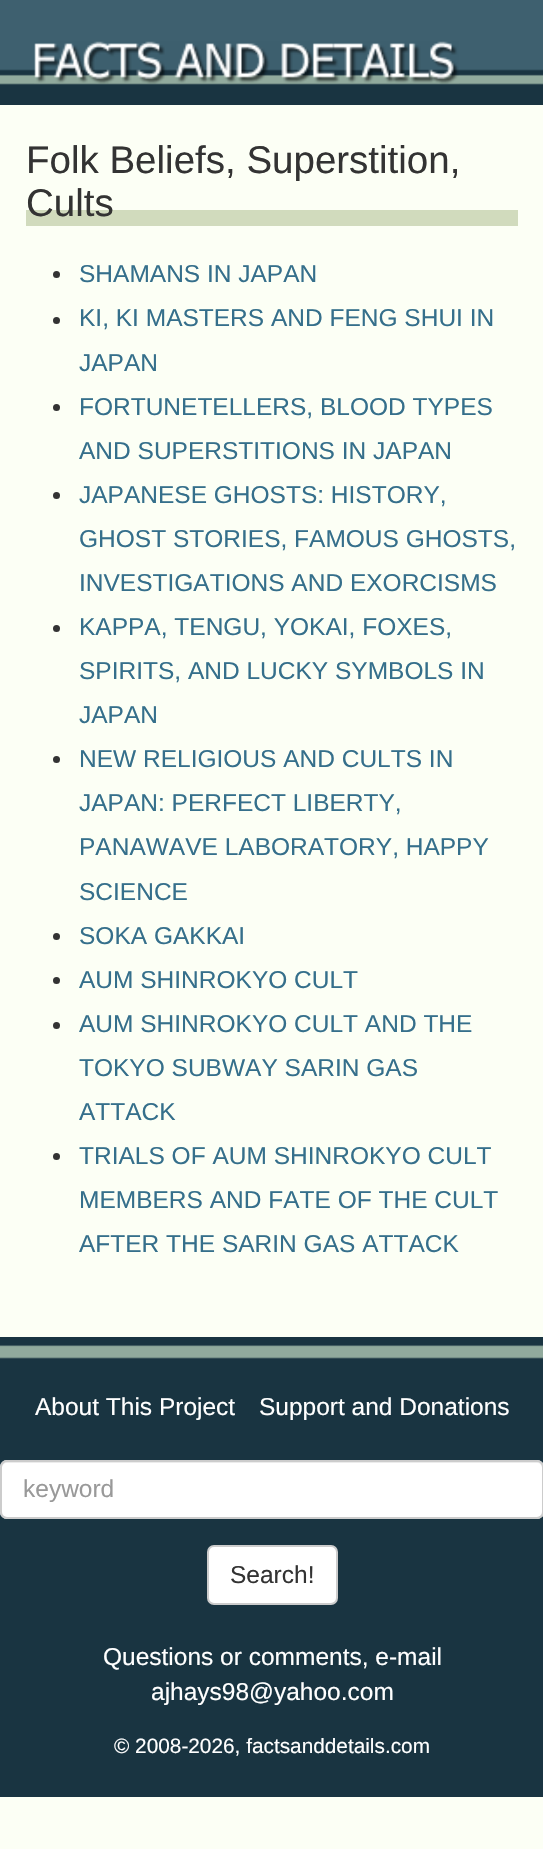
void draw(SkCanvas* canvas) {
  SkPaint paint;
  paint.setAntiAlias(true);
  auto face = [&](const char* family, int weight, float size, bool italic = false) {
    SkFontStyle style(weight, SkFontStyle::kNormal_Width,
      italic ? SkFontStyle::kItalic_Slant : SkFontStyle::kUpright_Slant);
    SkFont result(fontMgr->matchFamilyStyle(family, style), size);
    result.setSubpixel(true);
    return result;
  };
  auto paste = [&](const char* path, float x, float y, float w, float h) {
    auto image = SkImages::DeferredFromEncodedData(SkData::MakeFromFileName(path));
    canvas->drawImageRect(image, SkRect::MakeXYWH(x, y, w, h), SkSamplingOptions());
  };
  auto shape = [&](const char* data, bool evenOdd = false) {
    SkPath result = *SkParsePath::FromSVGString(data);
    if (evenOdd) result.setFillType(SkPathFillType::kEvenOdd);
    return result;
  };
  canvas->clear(0xfffcfff5);
  paste("img/1.png", 0, 0, 543, 105);
  paste("img/2.png", 34, 41, 425, 43);
  paint.setColor(0xffd1dbbd);
  canvas->drawRect(SkRect::MakeXYWH(26, 210, 492, 16), paint);
  paint.setColor(0xff333333);
  canvas->drawCircle(56.5f, 274.5f, 3.5f, paint);
  canvas->drawCircle(56.5f, 320.5f, 3.5f, paint);
  canvas->drawCircle(56.5f, 407.5f, 3.5f, paint);
  canvas->drawCircle(56.5f, 495.5f, 3.5f, paint);
  canvas->drawCircle(56.5f, 628.5f, 3.5f, paint);
  canvas->drawCircle(56.5f, 759.5f, 3.5f, paint);
  canvas->drawCircle(56.5f, 936.5f, 3.5f, paint);
  canvas->drawCircle(56.5f, 980.5f, 3.5f, paint);
  canvas->drawCircle(56.5f, 1025.5f, 3.5f, paint);
  canvas->drawCircle(56.5f, 1156.5f, 3.5f, paint);
  paint.setColor(0xff193441);
  canvas->drawRect(SkRect::MakeXYWH(0, 1337, 543, 460), paint);
  paste("img/3.png", 0, 1345, 543, 14);
  paint.setColor(0xffffffff);
  canvas->drawRoundRect(SkRect::MakeXYWH(0, 1460, 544, 59), 7, 7, paint);
  paint.setColor(0xffececec);
  canvas->drawPath(shape("M7 1463H537C540 1463 542 1465 542 1468V1515C543 1514 543 1513 543 1512V1466C543 1463 541 1461 538 1461H7C4 1461 2 1463 2 1466V1468C2 1465 4 1463 7 1463Z"), paint);
  paint.setStroke(true);
  paint.setStrokeWidth(2);
  paint.setColor(0xffcccccc);
  canvas->drawRoundRect(SkRect::MakeXYWH(1, 1461, 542, 57), 6, 6, paint);
  paint.setStroke(false);
  paint.setColor(0xffffffff);
  canvas->drawRoundRect(SkRect::MakeXYWH(208, 1546, 129, 58), 6, 6, paint);
  paint.setStroke(true);
  paint.setColor(0xffcccccc);
  canvas->drawRoundRect(SkRect::MakeXYWH(208, 1546, 129, 58), 6, 6, paint);
  auto f0 = face("Liberation Sans", 400, 38.5f);
  paint.setStroke(false);
  paint.setColor(0xff333333);
  canvas->drawString("Folk Beliefs, Superstition,", 26, 173, f0, paint);
  canvas->drawString("Cults", 26, 216, f0, paint);
  auto f1 = face("Liberation Sans", 400, 24.5f);
  paint.setColor(0xff356f8b);
  {
    const struct { const char* s; float x, y; } items[] = {
      {"SHAMANS IN JAPAN", 79, 282},
      {"KI, KI MASTERS AND FENG SHUI IN", 79, 326},
      {"JAPAN", 79, 371},
      {"FORTUNETELLERS, BLOOD TYPES", 79, 415},
      {"AND SUPERSTITIONS IN JAPAN", 79, 459},
      {"JAPANESE GHOSTS: HISTORY,", 79, 503},
      {"GHOST STORIES, FAMOUS GHOSTS,", 79, 547},
      {"INVESTIGATIONS AND EXORCISMS", 79, 591},
      {"KAPPA, TENGU, YOKAI, FOXES,", 79, 635},
      {"SPIRITS, AND LUCKY SYMBOLS IN", 79, 679},
      {"JAPAN", 79, 723},
      {"NEW RELIGIOUS AND CULTS IN", 79, 767},
      {"JAPAN: PERFECT LIBERTY,", 79, 811},
      {"PANAWAVE LABORATORY, HAPPY", 79, 855},
      {"SCIENCE", 79, 900},
      {"SOKA GAKKAI", 79, 944},
      {"AUM SHINROKYO CULT", 79, 988},
      {"AUM SHINROKYO CULT AND THE", 79, 1032},
      {"TOKYO SUBWAY SARIN GAS", 79, 1076},
      {"ATTACK", 79, 1120},
      {"TRIALS OF AUM SHINROKYO CULT", 79, 1164},
      {"MEMBERS AND FATE OF THE CULT", 79, 1208},
      {"AFTER THE SARIN GAS ATTACK", 79, 1252},
    };
    for (auto [s, x, y] : items) {
      canvas->drawString(s, x, y, f1, paint);
    }
  }
  paint.setColor(0xffffffff);
  canvas->drawString("About This Project", 35, 1415, f1, paint);
  canvas->drawString("Support and Donations", 259, 1415, f1, paint);
  paint.setColor(0xff999999);
  canvas->drawString("keyword", 23, 1497, f1, paint);
  paint.setColor(0xff333333);
  canvas->drawString("Search!", 230, 1583, f1, paint);
  paint.setColor(0xffffffff);
  canvas->drawString("Questions or comments, e-mail", 103, 1665, f1, paint);
  canvas->drawString("ajhays98@yahoo.com", 151, 1700, f1, paint);
  auto f2 = face("Liberation Sans", 400, 20.8f);
  canvas->drawString("© 2008-2026, factsanddetails.com", 114, 1753, f2, paint);
}
